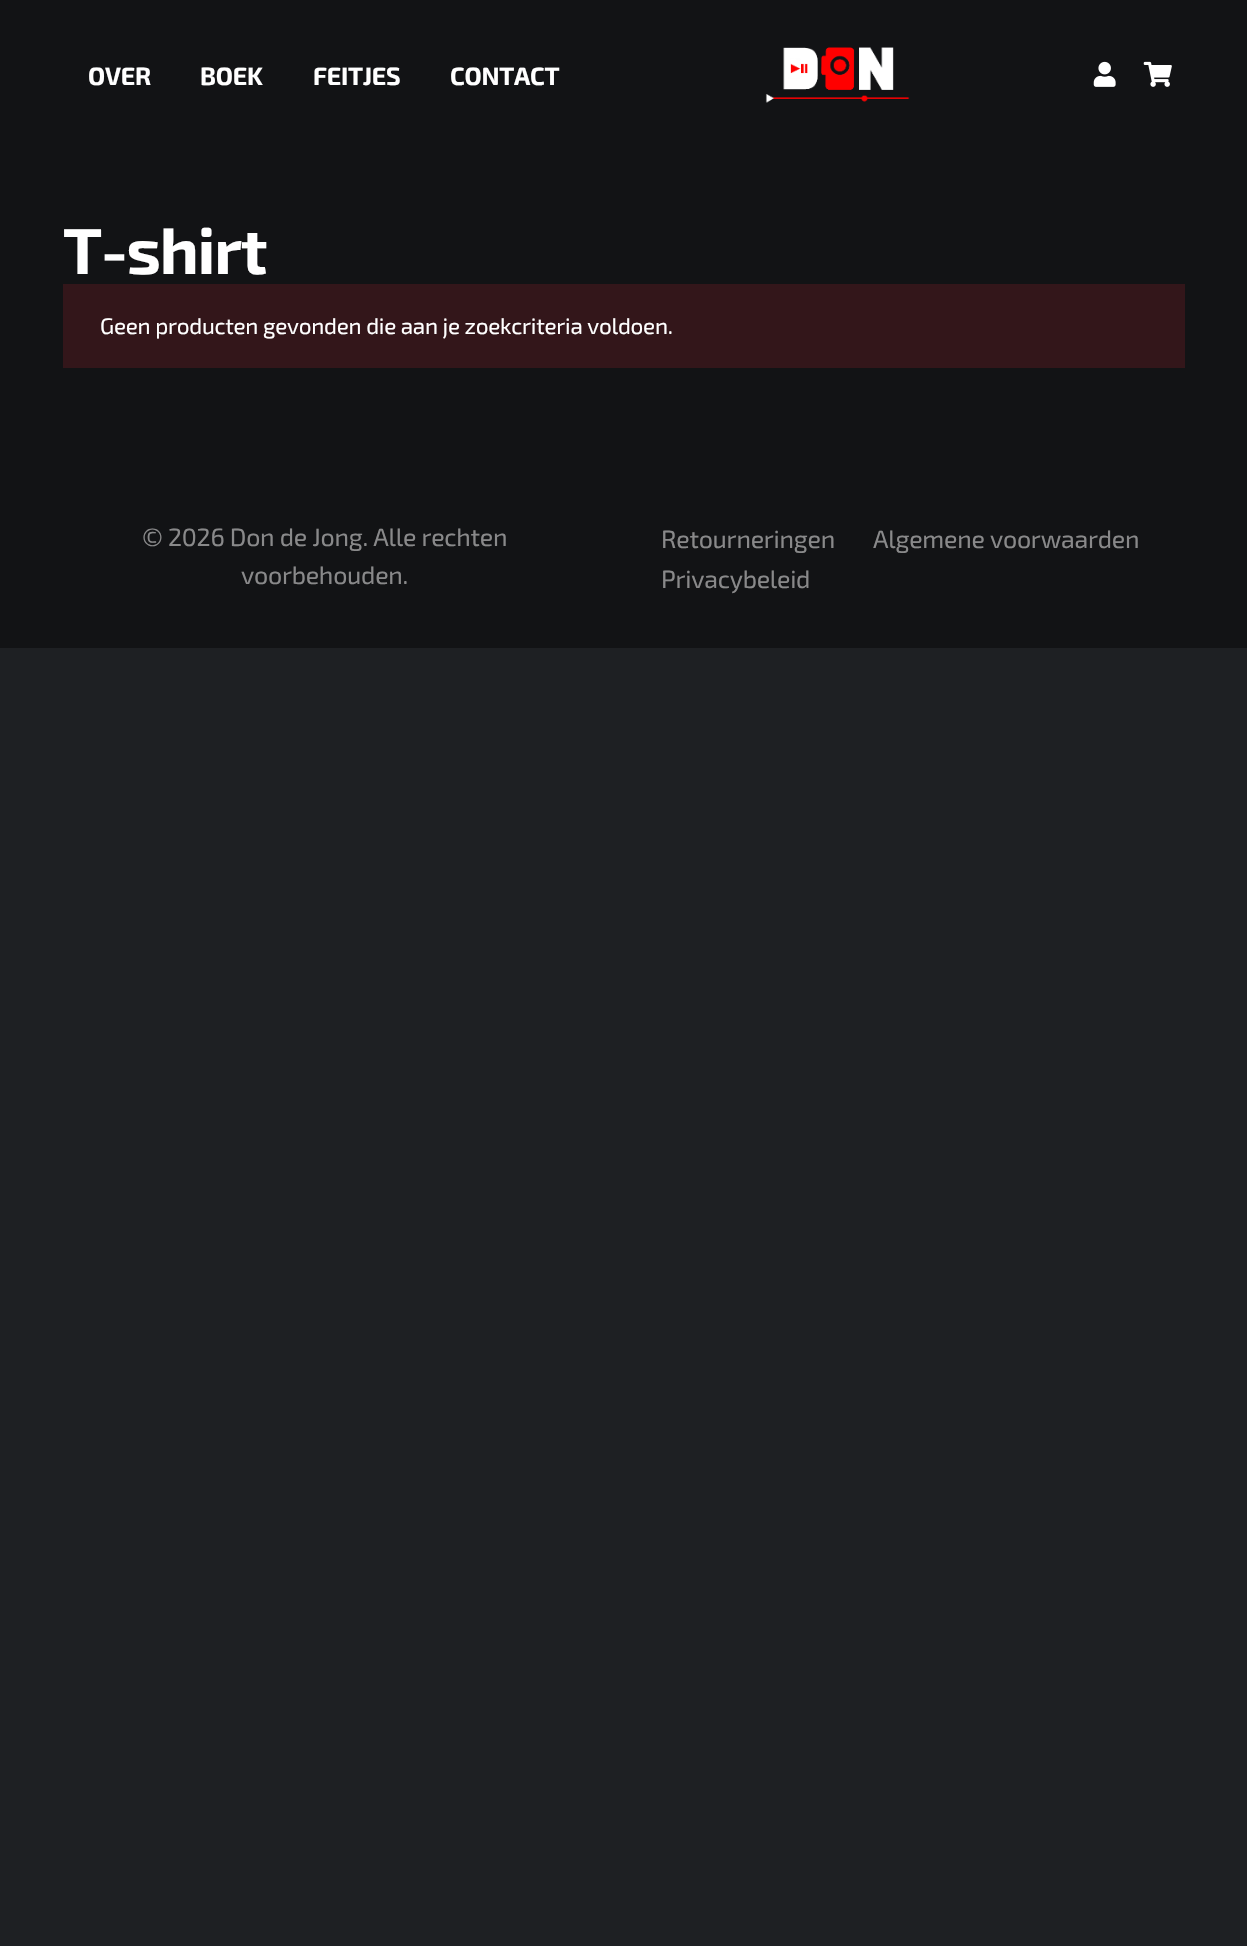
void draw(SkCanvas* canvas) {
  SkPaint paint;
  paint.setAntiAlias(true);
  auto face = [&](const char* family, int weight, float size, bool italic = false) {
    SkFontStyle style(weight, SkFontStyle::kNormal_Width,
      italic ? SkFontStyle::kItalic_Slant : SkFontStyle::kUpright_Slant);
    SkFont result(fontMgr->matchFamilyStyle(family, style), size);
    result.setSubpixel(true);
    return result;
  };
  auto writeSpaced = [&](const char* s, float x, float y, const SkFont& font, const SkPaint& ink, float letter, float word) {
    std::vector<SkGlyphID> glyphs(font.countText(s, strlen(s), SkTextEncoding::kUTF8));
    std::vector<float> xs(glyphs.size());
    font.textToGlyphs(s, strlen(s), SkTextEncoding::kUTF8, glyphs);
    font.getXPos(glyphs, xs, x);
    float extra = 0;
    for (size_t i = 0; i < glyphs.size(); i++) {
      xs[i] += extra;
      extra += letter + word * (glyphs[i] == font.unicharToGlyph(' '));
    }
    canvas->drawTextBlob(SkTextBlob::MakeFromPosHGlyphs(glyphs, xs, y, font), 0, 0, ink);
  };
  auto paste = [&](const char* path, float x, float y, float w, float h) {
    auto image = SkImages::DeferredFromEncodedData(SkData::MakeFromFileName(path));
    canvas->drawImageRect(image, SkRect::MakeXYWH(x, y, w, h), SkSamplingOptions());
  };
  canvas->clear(0xff1e2023);
  paint.setColor(0xff121315);
  canvas->drawRect(SkRect::MakeXYWH(0, 0, 1247, 648), paint);
  paste("img/1.png", 765, 47, 145, 56);
  paste("img/2.png", 1093, 61, 23, 26);
  paste("img/3.png", 1143, 61, 29, 26);
  paint.setColor(0xff33161a);
  canvas->drawRect(SkRect::MakeXYWH(63, 284, 1122, 84), paint);
  auto f0 = face("Exo 2", 700, 25);
  paint.setColor(0xffffffff);
  {
    const struct { const char* s; float x, y; } items[] = {
      {"OVER", 88, 85},
      {"BOEK", 200, 85},
      {"FEITJES", 313, 85},
      {"CONTACT", 450, 85},
    };
    for (auto [s, x, y] : items) {
      writeSpaced(s, x, y, f0, paint, -0.25f, 0);
    }
  }
  auto f1 = face("Exo 2", 700, 65);
  writeSpaced("T-shirt", 63, 274, f1, paint, -1.25f, 0);
  auto f2 = face("Exo 2", 400, 22.5f);
  writeSpaced("Geen producten gevonden die aan je zoekcriteria voldoen.", 100, 334, f2, paint, -0.25f, 0);
  auto f3 = face("Exo 2", 400, 25);
  paint.setColor(0xff89898a);
  {
    const struct { const char* s; float x, y; } items[] = {
      {"© 2026 Don de Jong. Alle rechten", 142, 546},
      {"voorbehouden.", 241, 584},
      {"Retourneringen", 661, 548},
      {"Algemene voorwaarden", 873, 548},
      {"Privacybeleid", 661, 588},
    };
    for (auto [s, x, y] : items) {
      writeSpaced(s, x, y, f3, paint, -0.25f, 0);
    }
  }
}
